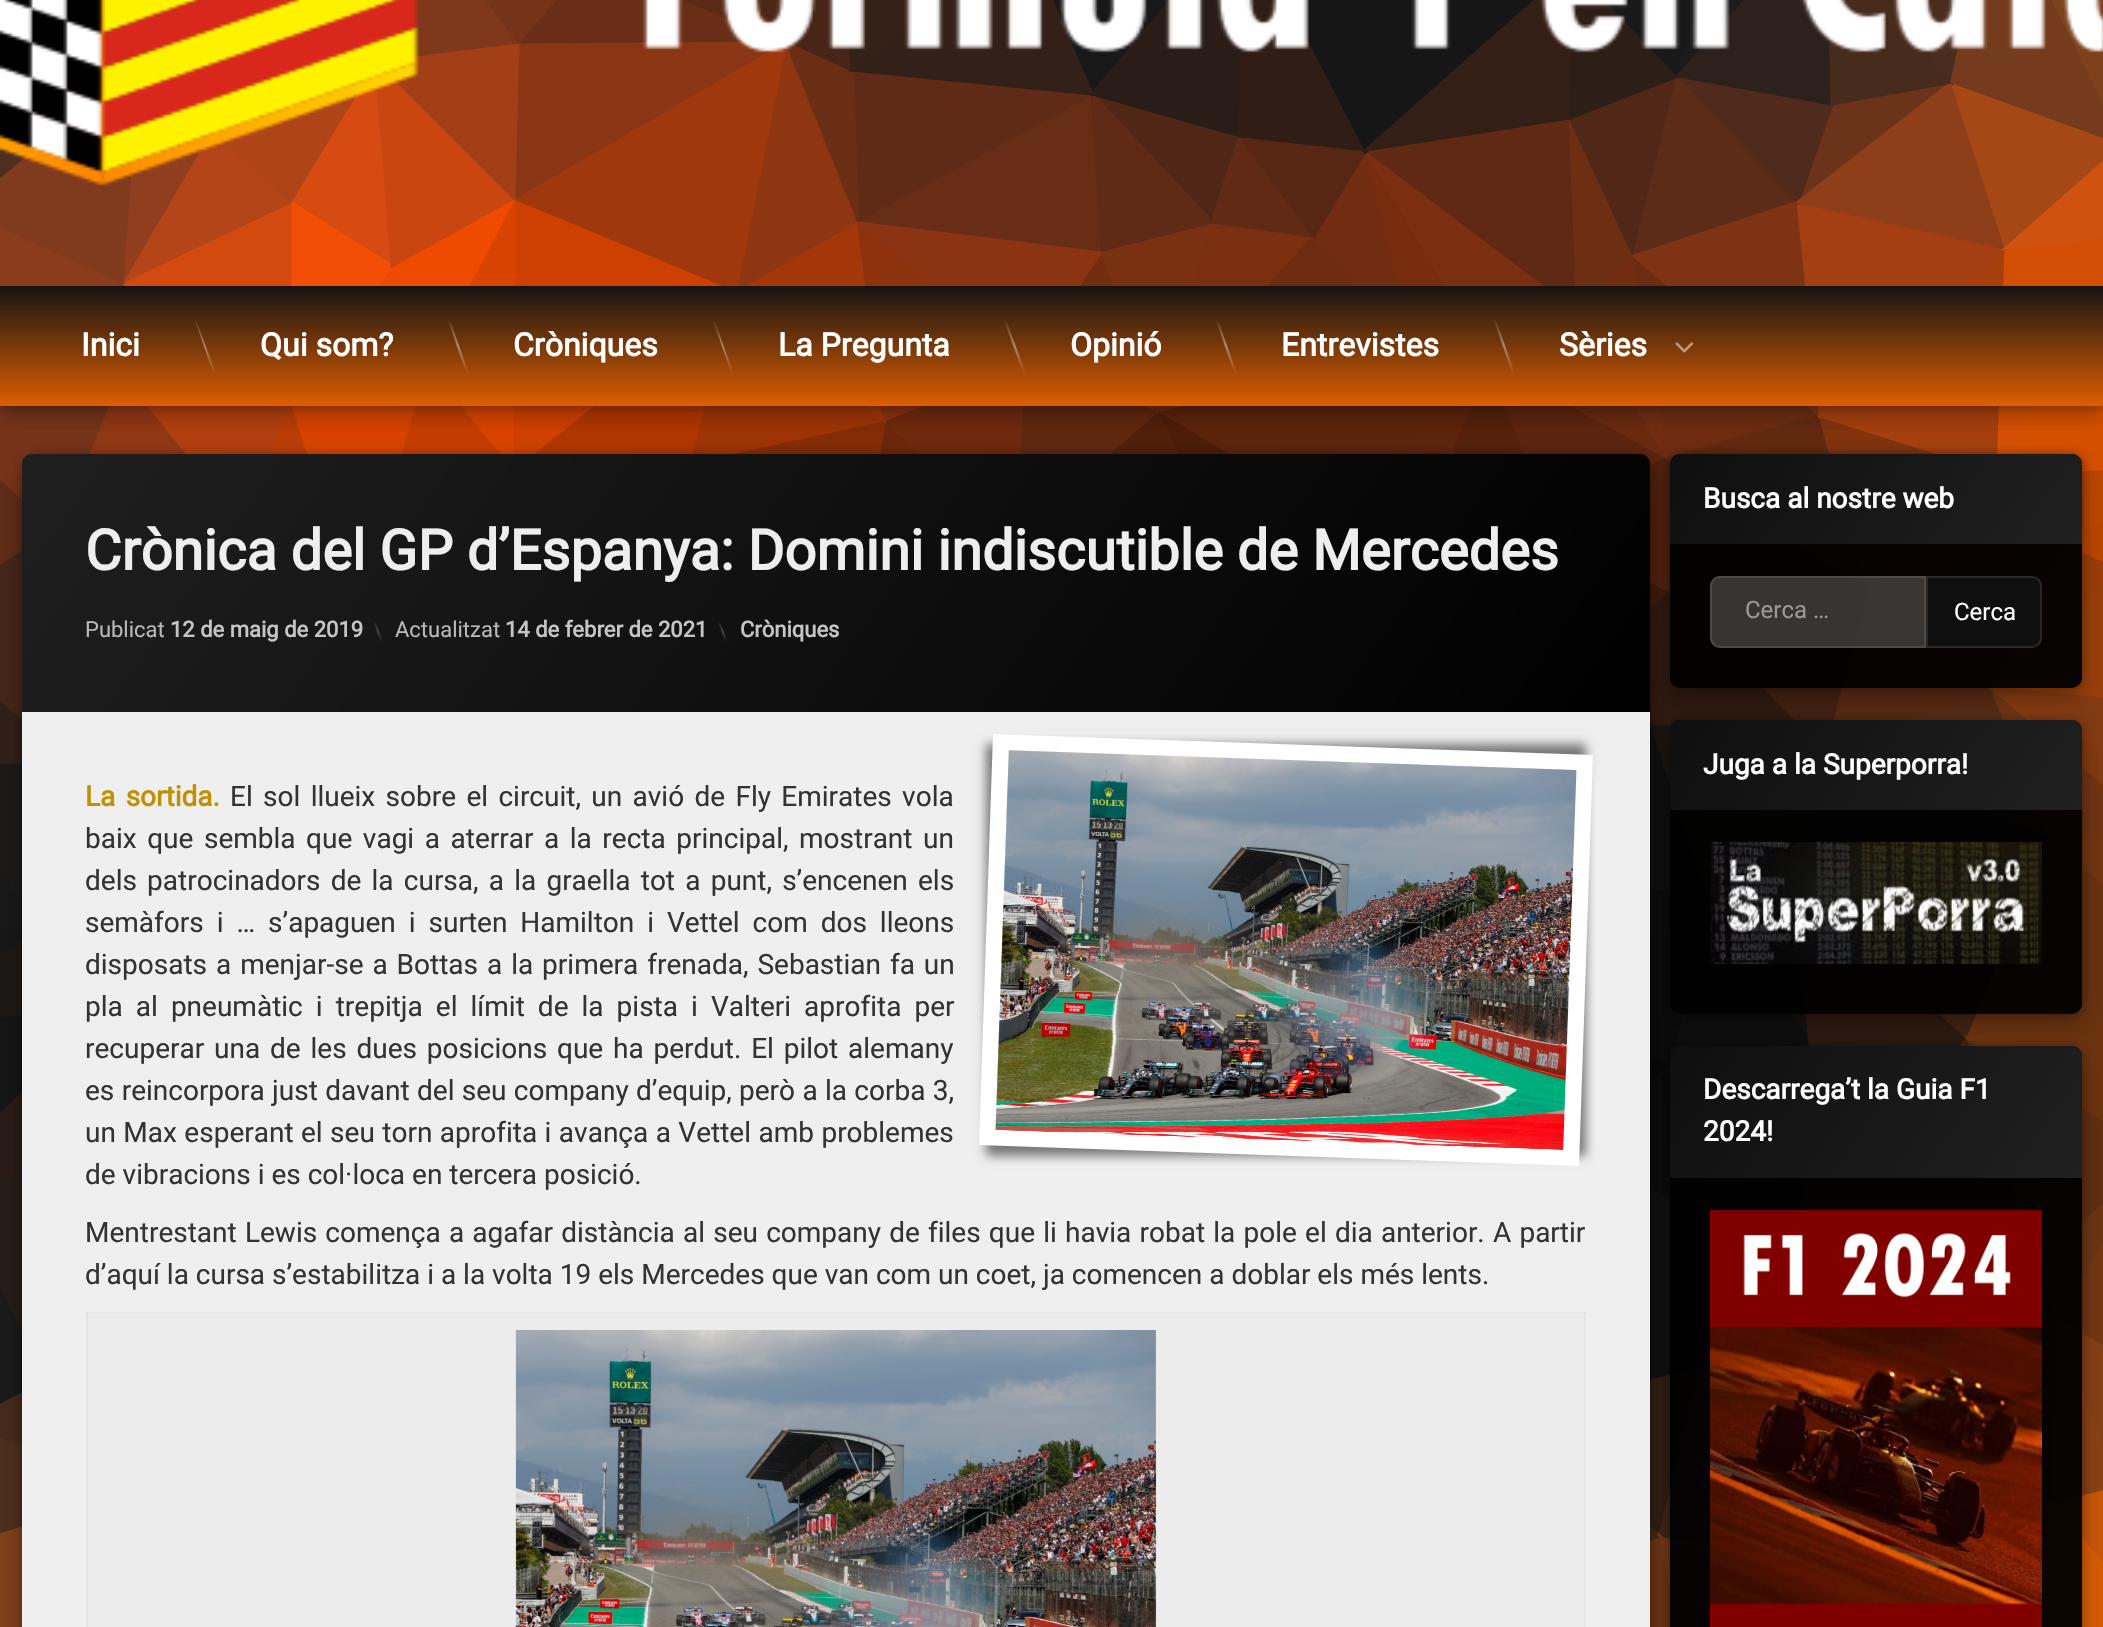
void draw(SkCanvas* canvas) {
  SkPaint paint;
  paint.setAntiAlias(true);
  auto face = [&](const char* family, int weight, float size, bool italic = false) {
    SkFontStyle style(weight, SkFontStyle::kNormal_Width,
      italic ? SkFontStyle::kItalic_Slant : SkFontStyle::kUpright_Slant);
    SkFont result(fontMgr->matchFamilyStyle(family, style), size);
    result.setSubpixel(true);
    return result;
  };
  auto writeSpaced = [&](const char* s, float x, float y, const SkFont& font, const SkPaint& ink, float letter, float word) {
    std::vector<SkGlyphID> glyphs(font.countText(s, strlen(s), SkTextEncoding::kUTF8));
    std::vector<float> xs(glyphs.size());
    font.textToGlyphs(s, strlen(s), SkTextEncoding::kUTF8, glyphs);
    font.getXPos(glyphs, xs, x);
    float extra = 0;
    for (size_t i = 0; i < glyphs.size(); i++) {
      xs[i] += extra;
      extra += letter + word * (glyphs[i] == font.unicharToGlyph(' '));
    }
    canvas->drawTextBlob(SkTextBlob::MakeFromPosHGlyphs(glyphs, xs, y, font), 0, 0, ink);
  };
  auto paste = [&](const char* path, float x, float y, float w, float h) {
    auto image = SkImages::DeferredFromEncodedData(SkData::MakeFromFileName(path));
    canvas->drawImageRect(image, SkRect::MakeXYWH(x, y, w, h), SkSamplingOptions());
  };
  auto shape = [&](const char* data, bool evenOdd = false) {
    SkPath result = *SkParsePath::FromSVGString(data);
    if (evenOdd) result.setFillType(SkPathFillType::kEvenOdd);
    return result;
  };
  canvas->clear(0xffffffff);
  paste("img/1.png", 0, 0, 2103, 1627);
  canvas->save();
  canvas->clipRect(SkRect::MakeXYWH(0, 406, 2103, 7));
  paint.setColor(0x40000000);
  paint.setMaskFilter(SkMaskFilter::MakeBlur(kNormal_SkBlurStyle, 5));
  canvas->drawRect(SkRect::MakeXYWH(0, -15, 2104, 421), paint);
  paint.setMaskFilter(nullptr);
  canvas->restore();
  canvas->save();
  canvas->clipRect(SkRect::MakeXYWH(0, 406, 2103, 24));
  paint.setMaskFilter(SkMaskFilter::MakeBlur(kNormal_SkBlurStyle, 10));
  canvas->drawRect(SkRect::MakeXYWH(0, -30, 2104, 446), paint);
  paint.setMaskFilter(nullptr);
  canvas->restore();
  paste("img/2.png", 0, 0, 2103, 186);
  {
    const SkColor colors[] = {0xff141414, 0xffde5e00};
    const float stops[] = {0, 1};
    const SkPoint ends[] = {{1052, 286}, {1052, 406}};
    paint.setShader(SkGradientShader::MakeLinear(ends, colors, stops, 2, SkTileMode::kClamp));
    paint.setAlpha(255);
  }
  canvas->drawRect(SkRect::MakeXYWH(0, 286, 2103, 120), paint);
  {
    const SkColor colors[] = {0x00ffffff, 0x66ffffff, 0x00ffffff};
    const float stops[] = {0, 0.5f, 1};
    const SkPoint ends[] = {{194, 318}, {215, 374}};
    paint.setShader(SkGradientShader::MakeLinear(ends, colors, stops, 3, SkTileMode::kClamp));
    paint.setAlpha(255);
  }
  canvas->drawPath(shape("M194 318L195 317L216 374L214 375Z"), paint);
  {
    const SkColor colors[] = {0x00ffffff, 0x66ffffff, 0x00ffffff};
    const float stops[] = {0, 0.5f, 1};
    const SkPoint ends[] = {{448, 318}, {468, 374}};
    paint.setShader(SkGradientShader::MakeLinear(ends, colors, stops, 3, SkTileMode::kClamp));
    paint.setAlpha(255);
  }
  canvas->drawPath(shape("M447 318L449 317L469 374L467 375Z"), paint);
  {
    const SkColor colors[] = {0x00ffffff, 0x66ffffff, 0x00ffffff};
    const float stops[] = {0, 0.5f, 1};
    const SkPoint ends[] = {{712, 318}, {733, 374}};
    paint.setShader(SkGradientShader::MakeLinear(ends, colors, stops, 3, SkTileMode::kClamp));
    paint.setAlpha(255);
  }
  canvas->drawPath(shape("M712 318L713 317L734 374L732 375Z"), paint);
  {
    const SkColor colors[] = {0x00ffffff, 0x66ffffff, 0x00ffffff};
    const float stops[] = {0, 0.5f, 1};
    const SkPoint ends[] = {{1004, 318}, {1025, 374}};
    paint.setShader(SkGradientShader::MakeLinear(ends, colors, stops, 3, SkTileMode::kClamp));
    paint.setAlpha(255);
  }
  canvas->drawPath(shape("M1003 318L1005 317L1026 374L1024 375Z"), paint);
  {
    const SkColor colors[] = {0x00ffffff, 0x66ffffff, 0x00ffffff};
    const float stops[] = {0, 0.5f, 1};
    const SkPoint ends[] = {{1216, 318}, {1236, 374}};
    paint.setShader(SkGradientShader::MakeLinear(ends, colors, stops, 3, SkTileMode::kClamp));
    paint.setAlpha(255);
  }
  canvas->drawPath(shape("M1215 318L1217 317L1237 374L1235 375Z"), paint);
  {
    const SkColor colors[] = {0x00ffffff, 0x66ffffff, 0x00ffffff};
    const float stops[] = {0, 0.5f, 1};
    const SkPoint ends[] = {{1494, 318}, {1514, 374}};
    paint.setShader(SkGradientShader::MakeLinear(ends, colors, stops, 3, SkTileMode::kClamp));
    paint.setAlpha(255);
  }
  canvas->drawPath(shape("M1493 318L1495 317L1515 374L1513 375Z"), paint);
  paste("img/3.png", 1675, 342, 19, 11);
  paint.setShader(nullptr);
  paint.setColor(0x40000000);
  paint.setMaskFilter(SkMaskFilter::MakeBlur(kNormal_SkBlurStyle, 5));
  canvas->drawRoundRect(SkRect::MakeXYWH(22, 454, 1628, 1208), 20, 20, paint);
  paint.setMaskFilter(nullptr);
  canvas->save();
  canvas->clipPath(shape("M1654 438H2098V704H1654ZM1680 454H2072C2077.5 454 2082 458.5 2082 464V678C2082 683.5 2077.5 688 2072 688H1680C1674.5 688 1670 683.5 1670 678V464C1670 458.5 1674.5 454 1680 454Z", true), true);
  paint.setMaskFilter(SkMaskFilter::MakeBlur(kNormal_SkBlurStyle, 5));
  canvas->drawRoundRect(SkRect::MakeXYWH(1670, 454, 412, 234), 10, 10, paint);
  paint.setMaskFilter(nullptr);
  canvas->restore();
  canvas->save();
  canvas->clipPath(shape("M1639 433H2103V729H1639ZM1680 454H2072C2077.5 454 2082 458.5 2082 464V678C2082 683.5 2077.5 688 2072 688H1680C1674.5 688 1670 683.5 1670 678V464C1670 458.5 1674.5 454 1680 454Z", true), true);
  paint.setMaskFilter(SkMaskFilter::MakeBlur(kNormal_SkBlurStyle, 10));
  canvas->drawRoundRect(SkRect::MakeXYWH(1670, 464, 412, 234), 10, 10, paint);
  paint.setMaskFilter(nullptr);
  canvas->restore();
  paint.setColor(0xf2000000);
  canvas->drawRoundRect(SkRect::MakeXYWH(1670, 454, 412, 234), 10, 10, paint);
  paint.setColor(0x26000000);
  paint.setMaskFilter(SkMaskFilter::MakeBlur(kNormal_SkBlurStyle, 5));
  canvas->drawRoundRect(SkRect::MakeXYWH(1670, 454, 412, 90), 10, 10, paint);
  paint.setMaskFilter(nullptr);
  {
    const SkColor colors[] = {0xff0f0f0f, 0xff202020};
    const float stops[] = {0, 1};
    const SkPoint ends[] = {{1717, 387}, {2035, 611}};
    paint.setShader(SkGradientShader::MakeLinear(ends, colors, stops, 2, SkTileMode::kClamp));
    paint.setAlpha(255);
  }
  canvas->drawPath(shape("M1680 454H2072C2077.5 454 2082 458.5 2082 464V544H1670V464C1670 458.5 1674.5 454 1680 454Z"), paint);
  canvas->save();
  canvas->clipPath(shape("M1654 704H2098V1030H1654ZM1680 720H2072C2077.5 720 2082 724.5 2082 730V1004C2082 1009.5 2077.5 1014 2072 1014H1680C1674.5 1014 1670 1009.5 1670 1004V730C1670 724.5 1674.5 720 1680 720Z", true), true);
  paint.setShader(nullptr);
  paint.setColor(0x40000000);
  paint.setMaskFilter(SkMaskFilter::MakeBlur(kNormal_SkBlurStyle, 5));
  canvas->drawRoundRect(SkRect::MakeXYWH(1670, 720, 412, 294), 10, 10, paint);
  paint.setMaskFilter(nullptr);
  canvas->restore();
  canvas->save();
  canvas->clipPath(shape("M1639 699H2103V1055H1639ZM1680 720H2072C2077.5 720 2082 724.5 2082 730V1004C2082 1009.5 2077.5 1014 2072 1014H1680C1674.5 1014 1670 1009.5 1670 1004V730C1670 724.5 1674.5 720 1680 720Z", true), true);
  paint.setMaskFilter(SkMaskFilter::MakeBlur(kNormal_SkBlurStyle, 10));
  canvas->drawRoundRect(SkRect::MakeXYWH(1670, 730, 412, 294), 10, 10, paint);
  paint.setMaskFilter(nullptr);
  canvas->restore();
  paint.setColor(0xf2000000);
  canvas->drawRoundRect(SkRect::MakeXYWH(1670, 720, 412, 294), 10, 10, paint);
  {
    const SkColor colors[] = {0xff0f0f0f, 0xff202020};
    const float stops[] = {0, 1};
    const SkPoint ends[] = {{1717, 653}, {2035, 877}};
    paint.setShader(SkGradientShader::MakeLinear(ends, colors, stops, 2, SkTileMode::kClamp));
    paint.setAlpha(255);
  }
  canvas->drawPath(shape("M1680 720H2072C2077.5 720 2082 724.5 2082 730V810H1670V730C1670 724.5 1674.5 720 1680 720Z"), paint);
  canvas->save();
  canvas->clipPath(shape("M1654 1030H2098V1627H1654ZM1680 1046H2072C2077.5 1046 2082 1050.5 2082 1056V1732C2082 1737.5 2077.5 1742 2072 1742H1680C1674.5 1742 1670 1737.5 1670 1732V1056C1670 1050.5 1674.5 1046 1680 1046Z", true), true);
  paint.setShader(nullptr);
  paint.setColor(0x40000000);
  paint.setMaskFilter(SkMaskFilter::MakeBlur(kNormal_SkBlurStyle, 5));
  canvas->drawRoundRect(SkRect::MakeXYWH(1670, 1046, 412, 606), 10, 10, paint);
  paint.setMaskFilter(nullptr);
  canvas->restore();
  canvas->save();
  canvas->clipPath(shape("M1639 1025H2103V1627H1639ZM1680 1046H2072C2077.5 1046 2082 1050.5 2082 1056V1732C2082 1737.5 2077.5 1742 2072 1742H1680C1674.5 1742 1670 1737.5 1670 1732V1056C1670 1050.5 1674.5 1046 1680 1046Z", true), true);
  paint.setMaskFilter(SkMaskFilter::MakeBlur(kNormal_SkBlurStyle, 10));
  canvas->drawRoundRect(SkRect::MakeXYWH(1670, 1056, 412, 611), 10, 10, paint);
  paint.setMaskFilter(nullptr);
  canvas->restore();
  paint.setColor(0xf2000000);
  canvas->drawRoundRect(SkRect::MakeXYWH(1670, 1046, 412, 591), 10, 10, paint);
  {
    const SkColor colors[] = {0xff0f0f0f, 0xff202020};
    const float stops[] = {0, 1};
    const SkPoint ends[] = {{1707, 993}, {2045, 1231}};
    paint.setShader(SkGradientShader::MakeLinear(ends, colors, stops, 2, SkTileMode::kClamp));
    paint.setAlpha(255);
  }
  canvas->drawPath(shape("M1680 1046H2072C2077.5 1046 2082 1050.5 2082 1056V1178H1670V1056C1670 1050.5 1674.5 1046 1680 1046Z"), paint);
  paint.setShader(nullptr);
  paint.setColor(0x40000000);
  paint.setMaskFilter(SkMaskFilter::MakeBlur(kNormal_SkBlurStyle, 10));
  canvas->drawRoundRect(SkRect::MakeXYWH(22, 464, 1628, 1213), 20, 20, paint);
  paint.setMaskFilter(nullptr);
  paint.setColor(0xffefefef);
  canvas->drawPath(shape("M42 454H1630C1641 454 1650 463 1650 474V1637C1650 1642.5 1645.5 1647 1640 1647H32C26.5 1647 22 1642.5 22 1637V474C22 463 31 454 42 454Z"), paint);
  {
    const SkColor colors[] = {0xff1f1f1f, 0xff000000};
    const float stops[] = {0, 1};
    const SkPoint ends[] = {{229, 158}, {1443, 1008}};
    paint.setShader(SkGradientShader::MakeLinear(ends, colors, stops, 2, SkTileMode::kClamp));
    paint.setAlpha(255);
  }
  canvas->drawPath(shape("M32 454H1640C1645.5 454 1650 458.5 1650 464V712H22V464C22 458.5 26.5 454 32 454Z"), paint);
  {
    const SkColor colors[] = {0xff171717, 0xff525252, 0xff171717};
    const float stops[] = {0, 0.5f, 1};
    const SkPoint ends[] = {{374, 621}, {382, 642}};
    paint.setShader(SkGradientShader::MakeLinear(ends, colors, stops, 3, SkTileMode::kClamp));
    paint.setAlpha(255);
  }
  canvas->drawPath(shape("M373.5 621.5L375 621L382.5 641.5L381 642Z"), paint);
  {
    const SkColor colors[] = {0xff111111, 0xff4c4c4c, 0xff111111};
    const float stops[] = {0, 0.5f, 1};
    const SkPoint ends[] = {{719, 621}, {726, 642}};
    paint.setShader(SkGradientShader::MakeLinear(ends, colors, stops, 3, SkTileMode::kClamp));
    paint.setAlpha(255);
  }
  canvas->drawPath(shape("M718 621.5L719.5 621L727.5 641.5L725.5 642Z"), paint);
  paint.setShader(nullptr);
  paint.setColor(0x80000000);
  paint.setMaskFilter(SkMaskFilter::MakeBlur(kNormal_SkBlurStyle, 5));
  canvas->drawRect(SkRect::MakeXYWH(986, 744, 600, 412), paint);
  paint.setMaskFilter(nullptr);
  paint.setColor(0xffffffff);
  canvas->drawPath(shape("M993 734L1593 755L1579 1166L979 1145Z"), paint);
  paste("img/4.png", 995, 750, 582, 400);
  {
    const struct { float x, y, w, h; SkColor color; } items[] = {
      {86, 1314, 1498, 313, 0xffececec},
      {86, 1312, 1500, 2, 0xffe8e8e8},
      {1584, 1312, 2, 315, 0x1aaaaaaa},
      {86, 1312, 2, 315, 0x1aaaaaaa},
    };
    for (auto [x, y, w, h, color] : items) {
      paint.setColor(color);
      canvas->drawRect(SkRect::MakeXYWH(x, y, w, h), paint);
    }
  }
  paste("img/5.png", 515, 1330, 642, 297);
  paint.setColor(0x33ffffff);
  canvas->drawPath(shape("M1720 576H1926V648H1720C1714.5 648 1710 643.5 1710 638V586C1710 580.5 1714.5 576 1720 576Z"), paint);
  paint.setStroke(true);
  paint.setStrokeWidth(2);
  paint.setColor(0x1affffff);
  canvas->drawPath(shape("M1720 577H1925V647H1720C1715 647 1711 643 1711 638V586C1711 581 1715 577 1720 577Z"), paint);
  paint.setStroke(false);
  paint.setColor(0xff0f0f0f);
  canvas->drawPath(shape("M1926 576H2032C2037.5 576 2042 580.5 2042 586V638C2042 643.5 2037.5 648 2032 648H1926Z"), paint);
  paint.setStroke(true);
  paint.setColor(0x1affffff);
  canvas->drawPath(shape("M1927 577H2032C2037 577 2041 581 2041 586V638C2041 643 2037 647 2032 647H1927Z"), paint);
  paste("img/6.png", 1710, 842, 332, 122);
  paste("img/7.png", 1710, 1209, 332, 418);
  auto f0 = face("Roboto", 700, 32);
  paint.setStroke(false);
  paint.setColor(0xffffffff);
  {
    const struct { const char* s; float x, y; } items[] = {
      {"Inici", 81, 356},
      {"Qui som?", 260, 356},
      {"Cròniques", 513, 356},
      {"La Pregunta", 778, 356},
      {"Opinió", 1070, 356},
      {"Entrevistes", 1281, 356},
      {"Sèries", 1559, 356},
    };
    for (auto [s, x, y] : items) {
      canvas->drawString(s, x, y, f0, paint);
    }
  }
  auto f1 = face("Roboto", 700, 56);
  paint.setColor(0xffeeeeee);
  canvas->drawString("Crònica del GP d’Espanya: Domini indiscutible de Mercedes", 85, 570, f1, paint);
  auto f2 = face("Roboto", 400, 22);
  paint.setColor(0xffb9b9b9);
  canvas->drawString("Publicat", 85, 637, f2, paint);
  auto f3 = face("Roboto", 700, 22);
  paint.setColor(0xffc5c5c5);
  canvas->drawString("12 de maig de 2019", 170, 637, f3, paint);
  paint.setColor(0xffb9b9b9);
  canvas->drawString("Actualitzat", 395, 637, f2, paint);
  paint.setColor(0xffc5c5c5);
  canvas->drawString("14 de febrer de 2021", 505, 637, f3, paint);
  canvas->drawString("Cròniques", 740, 637, f3, paint);
  auto f4 = face("Roboto", 700, 28);
  paint.setColor(0xffbf9000);
  writeSpaced("La sortida.", 85, 806, f4, paint, 0, 3.4f);
  auto f5 = face("Roboto", 400, 28);
  paint.setColor(0xff333333);
  writeSpaced("El sol llueix sobre el circuit, un avió de Fly Emirates vola", 230, 806, f5, paint, 0, 3.4f);
  writeSpaced("baix que sembla que vagi a aterrar a la recta principal, mostrant un", 85, 848, f5, paint, 0, 3.6f);
  writeSpaced("dels patrocinadors de la cursa, a la graella tot a punt, s’encenen els", 85, 890, f5, paint, 0, 3.25f);
  writeSpaced("semàfors i … s’apaguen i surten Hamilton i Vettel com dos lleons", 85, 932, f5, paint, 0, 6);
  writeSpaced("disposats a menjar-se a Bottas a la primera frenada, Sebastian fa un", 85, 974, f5, paint, 0, 2);
  writeSpaced("pla al pneumàtic i trepitja el límit de la pista i Valteri aprofita per", 85, 1016, f5, paint, 0, 6.1f);
  writeSpaced("recuperar una de les dues posicions que ha perdut. El pilot alemany", 85, 1058, f5, paint, 0, 2.9f);
  writeSpaced("es reincorpora just davant del seu company d’equip, però a la corba 3,", 85, 1100, f5, paint, 0, 0.4f);
  writeSpaced("un Max esperant el seu torn aprofita i avança a Vettel amb problemes", 85, 1142, f5, paint, 0, 0.5f);
  canvas->drawString("de vibracions i es col·loca en tercera posició.", 85, 1184, f5, paint);
  writeSpaced("Mentrestant Lewis comença a agafar distància al seu company de files que li havia robat la pole el dia anterior. A partir", 85, 1242, f5, paint, 0, 1.25f);
  canvas->drawString("d’aquí la cursa s’estabilitza i a la volta 19 els Mercedes que van com un coet, ja comencen a doblar els més lents.", 85, 1284, f5, paint);
  paint.setColor(0xffffffff);
  canvas->drawString("Busca al nostre web", 1703, 508, f4, paint);
  auto f6 = face("Roboto", 400, 24);
  paint.setColor(0xff9a9a99);
  canvas->drawString("Cerca …", 1745, 618, f6, paint);
  paint.setColor(0xffffffff);
  canvas->drawString("Cerca", 1954, 620, f6, paint);
  {
    const struct { const char* s; float x, y; } items[] = {
      {"Juga a la Superporra!", 1703, 774},
      {"Descarrega’t la Guia F1", 1703, 1099},
      {"2024!", 1703, 1141},
    };
    for (auto [s, x, y] : items) {
      canvas->drawString(s, x, y, f4, paint);
    }
  }
}
